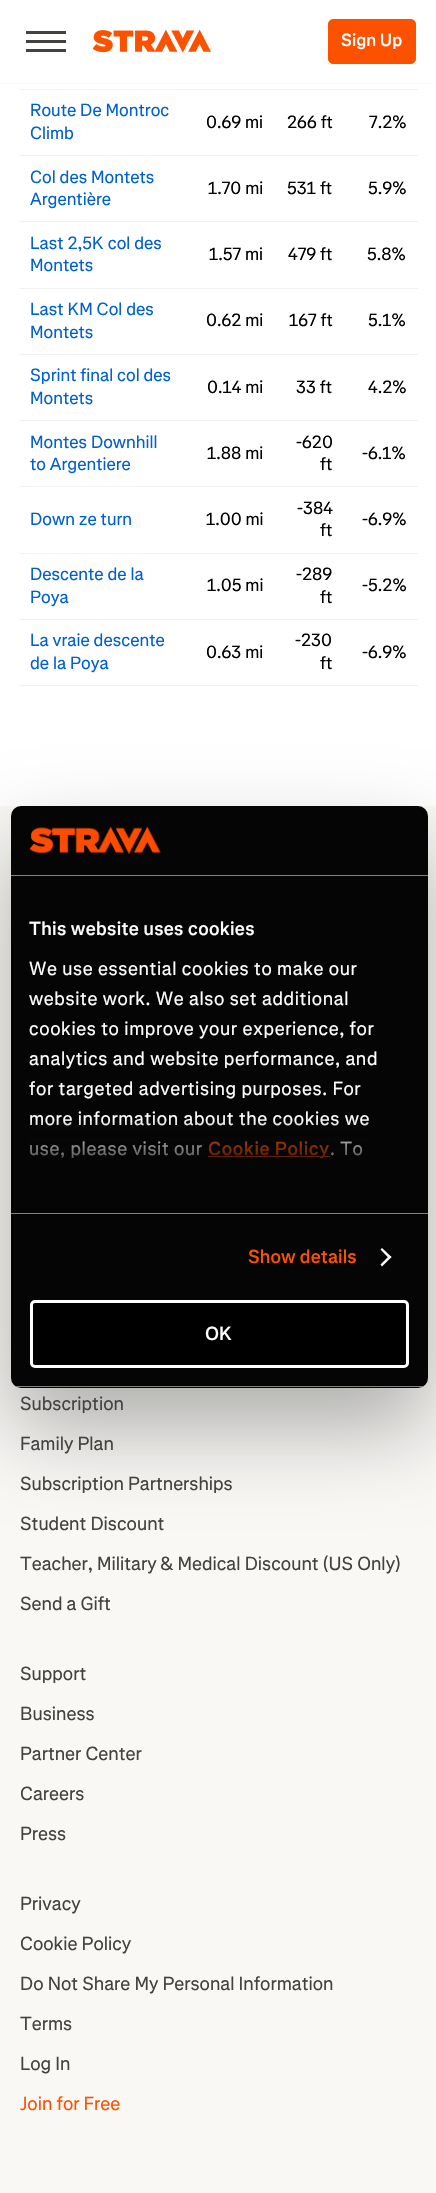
void draw(SkCanvas* canvas) {
  SkPaint paint;
  paint.setAntiAlias(true);
  auto face = [&](const char* family, int weight, float size, bool italic = false) {
    SkFontStyle style(weight, SkFontStyle::kNormal_Width,
      italic ? SkFontStyle::kItalic_Slant : SkFontStyle::kUpright_Slant);
    SkFont result(fontMgr->matchFamilyStyle(family, style), size);
    result.setSubpixel(true);
    return result;
  };
  auto writeSpaced = [&](const char* s, float x, float y, const SkFont& font, const SkPaint& ink, float letter, float word) {
    std::vector<SkGlyphID> glyphs(font.countText(s, strlen(s), SkTextEncoding::kUTF8));
    std::vector<float> xs(glyphs.size());
    font.textToGlyphs(s, strlen(s), SkTextEncoding::kUTF8, glyphs);
    font.getXPos(glyphs, xs, x);
    float extra = 0;
    for (size_t i = 0; i < glyphs.size(); i++) {
      xs[i] += extra;
      extra += letter + word * (glyphs[i] == font.unicharToGlyph(' '));
    }
    canvas->drawTextBlob(SkTextBlob::MakeFromPosHGlyphs(glyphs, xs, y, font), 0, 0, ink);
  };
  auto paste = [&](const char* path, float x, float y, float w, float h) {
    auto image = SkImages::DeferredFromEncodedData(SkData::MakeFromFileName(path));
    canvas->drawImageRect(image, SkRect::MakeXYWH(x, y, w, h), SkSamplingOptions());
  };
  auto shape = [&](const char* data, bool evenOdd = false) {
    SkPath result = *SkParsePath::FromSVGString(data);
    if (evenOdd) result.setFillType(SkPathFillType::kEvenOdd);
    return result;
  };
  canvas->clear(0xffffffff);
  {
    const struct { float x, y, w, h; SkColor color; } items[] = {
      {0, 83, 436, 1, 0xfffafafa},
      {26, 31, 40, 3, 0xff43423f},
      {26, 40, 40, 3, 0xff43423f},
      {26, 49, 40, 3, 0xff43423f},
    };
    for (auto [x, y, w, h, color] : items) {
      paint.setColor(color);
      canvas->drawRect(SkRect::MakeXYWH(x, y, w, h), paint);
    }
  }
  paste("img/1.png", 93, 29, 118, 24);
  paint.setColor(0xfffc5200);
  canvas->drawRoundRect(SkRect::MakeXYWH(328.5f, 19.5f, 87, 44), 4.5f, 4.5f, paint);
  paint.setStroke(true);
  paint.setStrokeWidth(1);
  canvas->drawRoundRect(SkRect::MakeXYWH(328.5f, 19.5f, 87, 44), 4.5f, 4.5f, paint);
  paint.setStroke(false);
  {
    const struct { float x, y, w, h; SkColor color; } items[] = {
      {20, 89, 398, 1, 0xfff2f2f0},
      {20, 155, 398, 1, 0xfff2f2f0},
      {20, 221, 398, 1, 0xfff2f2f0},
      {20, 288, 398, 1, 0xfff2f2f0},
      {20, 354, 398, 1, 0xfff2f2f0},
      {20, 420, 398, 1, 0xfff2f2f0},
      {20, 486, 398, 1, 0xfff2f2f0},
      {20, 553, 398, 1, 0xfff2f2f0},
      {20, 619, 398, 1, 0xfff2f2f0},
      {20, 685, 398, 1, 0xfff2f2f0},
      {0, 806, 436, 1387, 0xfff9f8f5},
    };
    for (auto [x, y, w, h, color] : items) {
      paint.setColor(color);
      canvas->drawRect(SkRect::MakeXYWH(x, y, w, h), paint);
    }
  }
  paint.setColor(0x4d000000);
  paint.setMaskFilter(SkMaskFilter::MakeBlur(kNormal_SkBlurStyle, 42.5f));
  canvas->drawRoundRect(SkRect::MakeXYWH(11, 846, 417, 582), 10, 10, paint);
  paint.setMaskFilter(nullptr);
  paint.setColor(0xff050505);
  canvas->drawRoundRect(SkRect::MakeXYWH(11, 806, 417, 582), 10, 10, paint);
  paint.setColor(0xff828282);
  canvas->drawRect(SkRect::MakeXYWH(11, 875, 417, 1), paint);
  paste("img/2.png", 29, 826, 132, 28);
  canvas->drawRect(SkRect::MakeXYWH(11, 1213, 417, 1), paint);
  paint.setColor(0xfffc5200);
  canvas->drawRect(SkRect::MakeXYWH(208, 1156, 122, 1), paint);
  paint.setColor(0xffffffff);
  canvas->drawPath(shape("M382 1248L391.5 1257L389.5 1259L380.5 1249.5Z"), paint);
  canvas->drawPath(shape("M389.5 1255.5L391.5 1257L382 1266.5L380.5 1264.5Z"), paint);
  canvas->save();
  canvas->clipPath(shape("M21 806H418C423.5 806 428 810.5 428 816V1378C428 1383.5 423.5 1388 418 1388H21C15.5 1388 11 1383.5 11 1378V816C11 810.5 15.5 806 21 806Z"), true);
  paint.setColor(0xff828282);
  canvas->drawRect(SkRect::MakeXYWH(11, 1386, 417, 1), paint);
  canvas->restore();
  paint.setColor(0xff000000);
  canvas->drawRoundRect(SkRect::MakeXYWH(31.5f, 1301.5f, 376, 65), 3.5f, 3.5f, paint);
  paint.setStroke(true);
  paint.setStrokeWidth(3);
  paint.setColor(0xffffffff);
  canvas->drawRoundRect(SkRect::MakeXYWH(31.5f, 1301.5f, 376, 65), 3.5f, 3.5f, paint);
  auto f0 = face("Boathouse", 500, 17.5f);
  paint.setStroke(false);
  canvas->drawString("Sign Up", 341, 46, f0, paint);
  auto f1 = face("Boathouse", 400, 17.5f);
  paint.setColor(0xff0060d0);
  canvas->drawString("Route De Montroc", 30, 116, f1, paint);
  canvas->drawString("Climb", 30, 139, f1, paint);
  paint.setColor(0xff000000);
  {
    const struct { const char* s; float x, y; } items[] = {
      {"0.69 mi", 206, 128},
      {"266 ft", 287, 128},
      {"7.2%", 369, 128},
    };
    for (auto [s, x, y] : items) {
      canvas->drawString(s, x, y, f1, paint);
    }
  }
  paint.setColor(0xff0060d0);
  canvas->drawString("Col des Montets", 30, 183, f1, paint);
  canvas->drawString("Argentière", 30, 205, f1, paint);
  paint.setColor(0xff000000);
  {
    const struct { const char* s; float x, y; } items[] = {
      {"1.70 mi", 208, 194},
      {"531 ft", 287, 194},
      {"5.9%", 368, 194},
    };
    for (auto [s, x, y] : items) {
      canvas->drawString(s, x, y, f1, paint);
    }
  }
  paint.setColor(0xff0060d0);
  canvas->drawString("Last 2,5K col des", 30, 249, f1, paint);
  canvas->drawString("Montets", 30, 271, f1, paint);
  paint.setColor(0xff000000);
  {
    const struct { const char* s; float x, y; } items[] = {
      {"1.57 mi", 209, 260},
      {"479 ft", 288, 260},
      {"5.8%", 367, 260},
    };
    for (auto [s, x, y] : items) {
      canvas->drawString(s, x, y, f1, paint);
    }
  }
  paint.setColor(0xff0060d0);
  canvas->drawString("Last KM Col des", 30, 315, f1, paint);
  canvas->drawString("Montets", 30, 338, f1, paint);
  paint.setColor(0xff000000);
  {
    const struct { const char* s; float x, y; } items[] = {
      {"0.62 mi", 206, 326},
      {"167 ft", 289, 326},
      {"5.1%", 368, 326},
    };
    for (auto [s, x, y] : items) {
      canvas->drawString(s, x, y, f1, paint);
    }
  }
  paint.setColor(0xff0060d0);
  canvas->drawString("Sprint final col des", 30, 381, f1, paint);
  canvas->drawString("Montets", 30, 404, f1, paint);
  paint.setColor(0xff000000);
  {
    const struct { const char* s; float x, y; } items[] = {
      {"0.14 mi", 207, 393},
      {"33 ft", 296, 393},
      {"4.2%", 368, 393},
    };
    for (auto [s, x, y] : items) {
      canvas->drawString(s, x, y, f1, paint);
    }
  }
  paint.setColor(0xff0060d0);
  canvas->drawString("Montes Downhill", 30, 448, f1, paint);
  canvas->drawString("to Argentiere", 30, 470, f1, paint);
  paint.setColor(0xff000000);
  {
    const struct { const char* s; float x, y; } items[] = {
      {"1.88 mi", 207, 459},
      {"-620", 296, 448},
      {"ft", 320, 470},
      {"-6.1%", 362, 459},
    };
    for (auto [s, x, y] : items) {
      canvas->drawString(s, x, y, f1, paint);
    }
  }
  paint.setColor(0xff0060d0);
  canvas->drawString("Down ze turn", 30, 525, f1, paint);
  paint.setColor(0xff000000);
  {
    const struct { const char* s; float x, y; } items[] = {
      {"1.00 mi", 206, 525},
      {"-384", 297, 514},
      {"ft", 320, 536},
      {"-6.9%", 362, 525},
    };
    for (auto [s, x, y] : items) {
      canvas->drawString(s, x, y, f1, paint);
    }
  }
  paint.setColor(0xff0060d0);
  canvas->drawString("Descente de la", 30, 580, f1, paint);
  canvas->drawString("Poya", 30, 603, f1, paint);
  paint.setColor(0xff000000);
  {
    const struct { const char* s; float x, y; } items[] = {
      {"1.05 mi", 207, 591},
      {"-289", 296, 580},
      {"ft", 320, 603},
      {"-5.2%", 362, 591},
    };
    for (auto [s, x, y] : items) {
      canvas->drawString(s, x, y, f1, paint);
    }
  }
  paint.setColor(0xff0060d0);
  canvas->drawString("La vraie descente", 30, 646, f1, paint);
  canvas->drawString("de la Poya", 30, 669, f1, paint);
  paint.setColor(0xff000000);
  {
    const struct { const char* s; float x, y; } items[] = {
      {"0.63 mi", 206, 658},
      {"-230", 295, 646},
      {"ft", 320, 669},
      {"-6.9%", 362, 658},
    };
    for (auto [s, x, y] : items) {
      canvas->drawString(s, x, y, f1, paint);
    }
  }
  auto f2 = face("Boathouse", 400, 18.75f);
  paint.setColor(0xff43423f);
  {
    const struct { const char* s; float x, y; } items[] = {
      {"Subscription", 20, 1410},
      {"Family Plan", 20, 1450},
      {"Subscription Partnerships", 20, 1490},
      {"Student Discount", 20, 1530},
      {"Teacher, Military & Medical Discount (US Only)", 20, 1570},
      {"Send a Gift", 20, 1610},
      {"Support", 20, 1680},
      {"Business", 20, 1720},
      {"Partner Center", 20, 1760},
      {"Careers", 20, 1800},
      {"Press", 20, 1840},
      {"Privacy", 20, 1910},
      {"Cookie Policy", 20, 1950},
      {"Do Not Share My Personal Information", 20, 1990},
      {"Terms", 20, 2030},
      {"Log In", 20, 2070},
    };
    for (auto [s, x, y] : items) {
      canvas->drawString(s, x, y, f2, paint);
    }
  }
  paint.setColor(0xfffc5200);
  canvas->drawString("Join for Free", 20, 2110, f2, paint);
  auto f3 = face("Boathouse", 500, 18.75f);
  paint.setColor(0xffffffff);
  writeSpaced("This website uses cookies", 29, 935, f3, paint, 0.3f, 0);
  {
    const struct { const char* s; float x, y; } items[] = {
      {"We use essential cookies to make our", 29, 975},
      {"website work. We also set additional", 29, 1005},
      {"cookies to improve your experience, for", 29, 1035},
      {"analytics and website performance, and", 29, 1065},
      {"for targeted advertising purposes. For", 29, 1095},
      {"more information about the cookies we", 29, 1125},
      {"use, please visit our", 29, 1155},
    };
    for (auto [s, x, y] : items) {
      writeSpaced(s, x, y, f2, paint, 0.6f, 0);
    }
  }
  paint.setColor(0xfffc5200);
  writeSpaced("Cookie Policy", 208, 1155, f3, paint, 0.6f, 0);
  paint.setColor(0xffffffff);
  writeSpaced(". To", 330, 1155, f2, paint, 0.6f, 0);
  {
    const SkColor colors[] = {0xff050505, 0xcc050505, 0x00050505};
    const float stops[] = {0, 0.5f, 1};
    const SkPoint ends[] = {{211, 1213}, {211, 1119}};
    paint.setShader(SkGradientShader::MakeLinear(ends, colors, stops, 3, SkTileMode::kClamp));
    paint.setAlpha(255);
  }
  canvas->drawRect(SkRect::MakeXYWH(29, 1120, 340, 39), paint);
  paint.setShader(nullptr);
  paint.setColor(0xfffc5200);
  writeSpaced("Show details", 248, 1263, f3, paint, 0.1f, 0);
  paint.setColor(0xffffffff);
  canvas->drawString("OK", 205, 1340, f3, paint);
}
